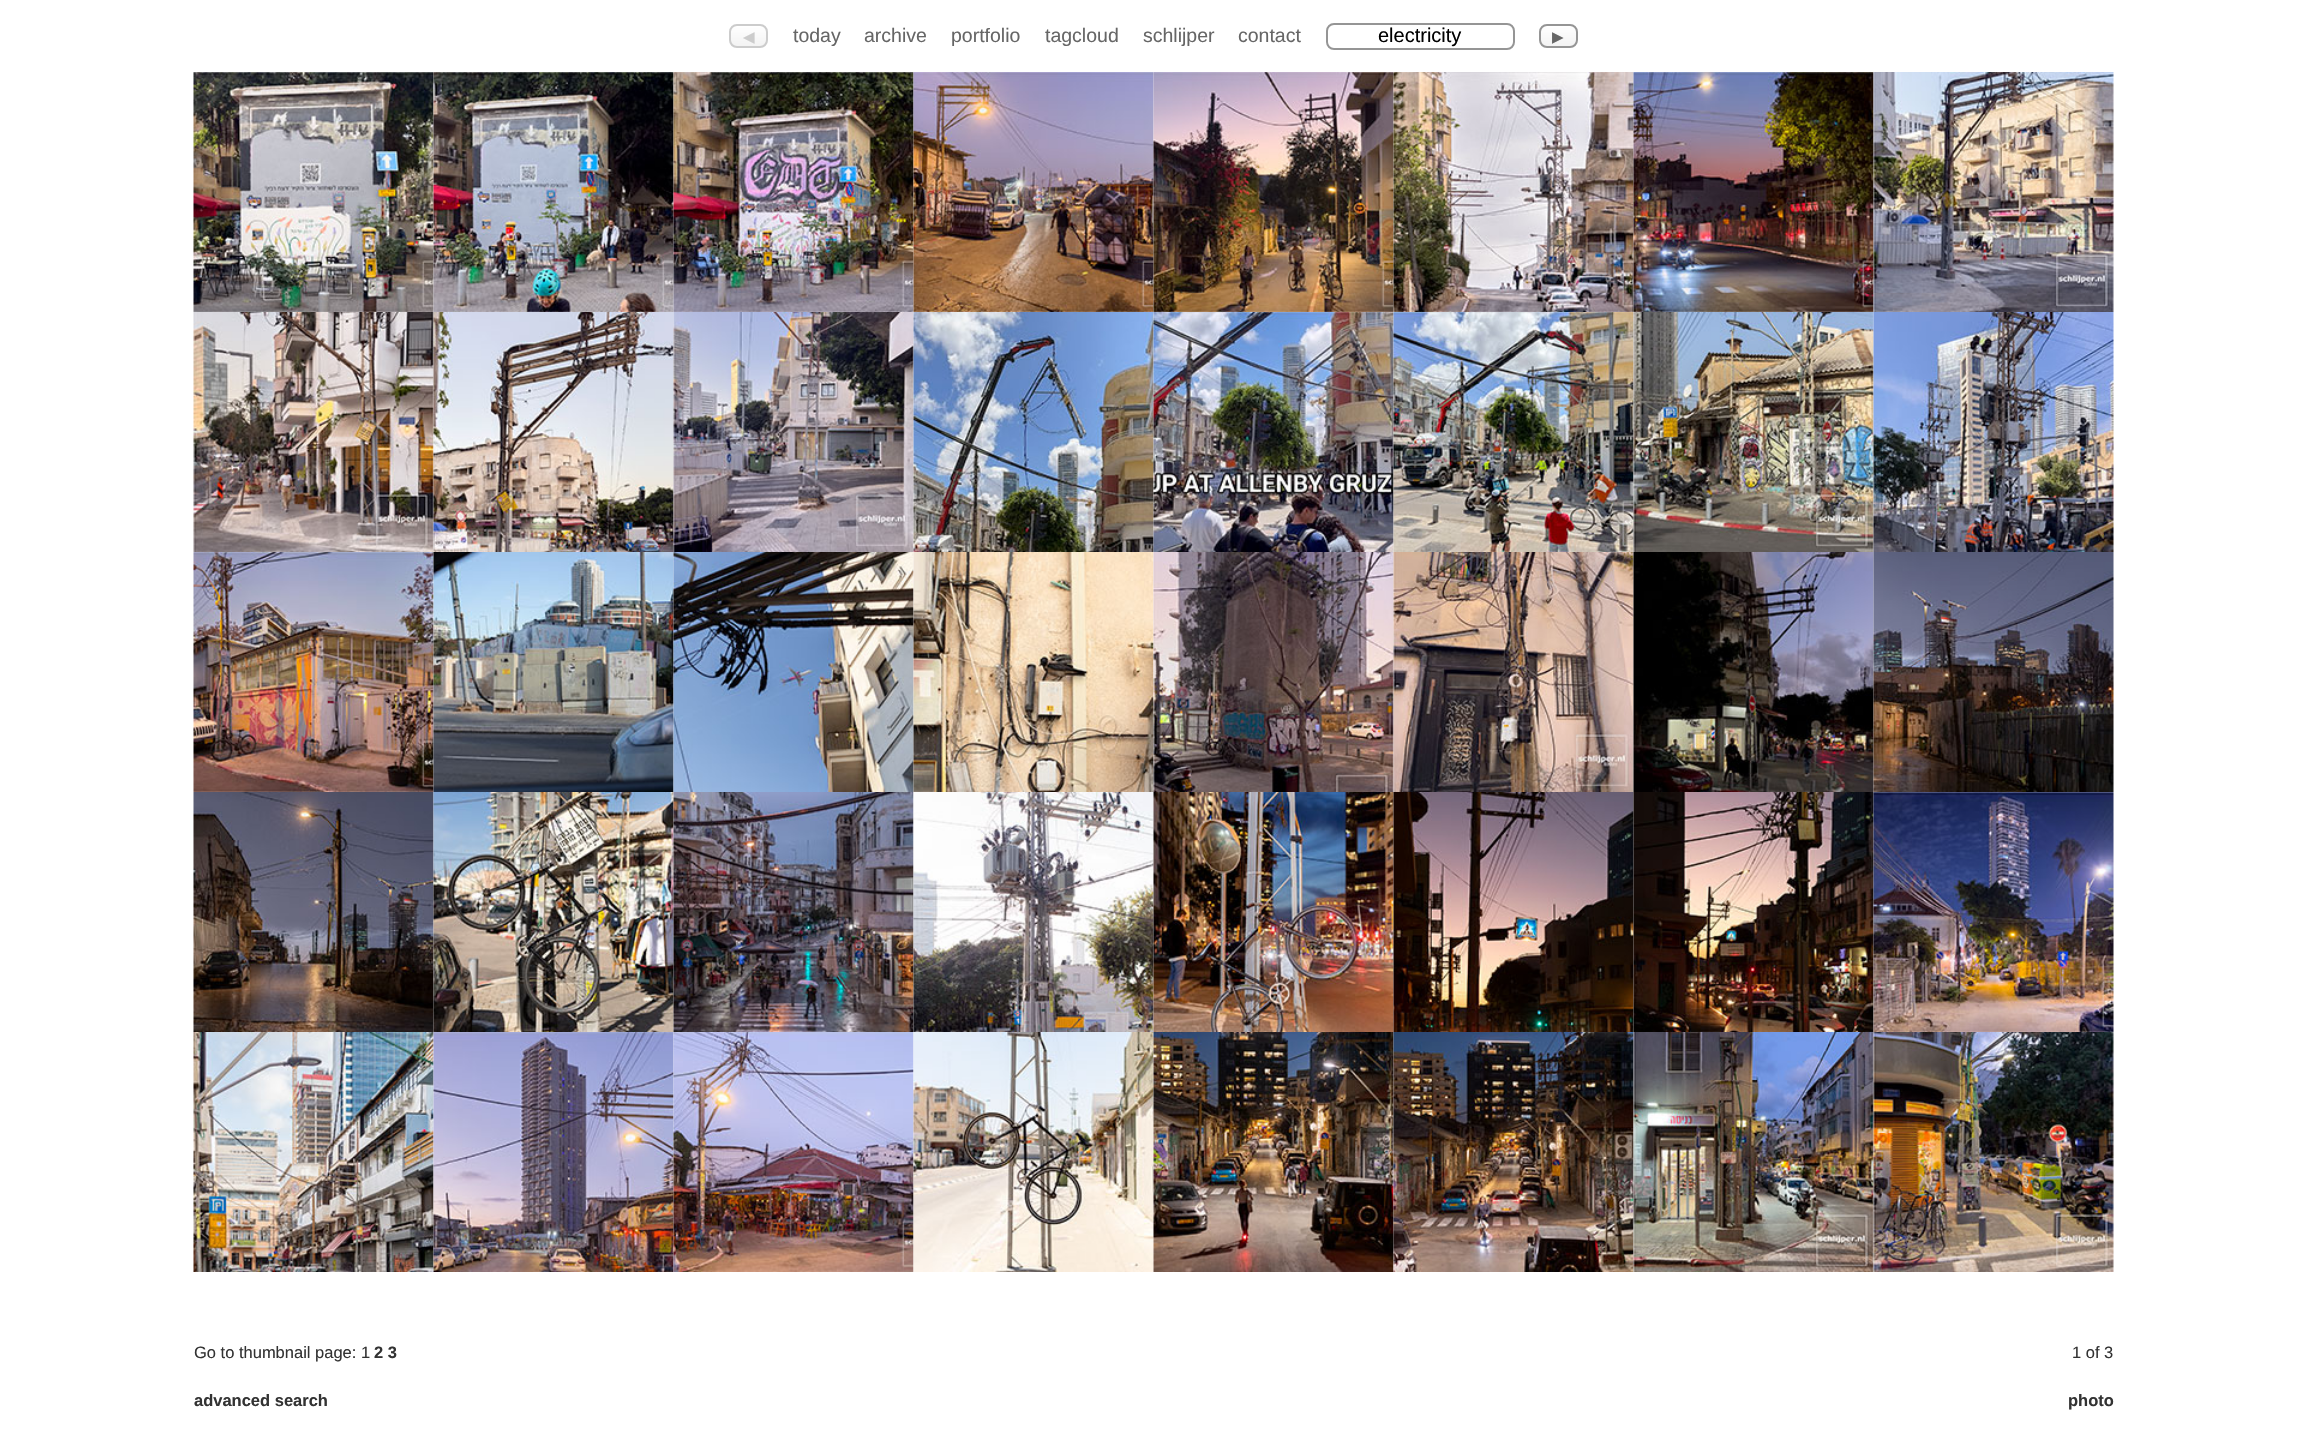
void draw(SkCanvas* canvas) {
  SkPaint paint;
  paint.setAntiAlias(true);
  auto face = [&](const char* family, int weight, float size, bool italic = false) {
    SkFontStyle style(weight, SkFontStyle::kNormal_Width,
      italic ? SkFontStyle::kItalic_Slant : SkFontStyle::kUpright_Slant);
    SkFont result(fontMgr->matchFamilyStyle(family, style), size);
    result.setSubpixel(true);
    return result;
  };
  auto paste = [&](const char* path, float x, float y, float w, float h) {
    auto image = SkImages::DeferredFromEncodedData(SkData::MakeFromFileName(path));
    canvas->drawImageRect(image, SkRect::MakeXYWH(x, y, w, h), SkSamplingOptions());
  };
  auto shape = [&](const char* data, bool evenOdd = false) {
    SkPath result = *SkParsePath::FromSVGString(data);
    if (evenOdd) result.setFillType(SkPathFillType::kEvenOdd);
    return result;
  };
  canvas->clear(0xffffffff);
  canvas->save();
  canvas->clipPath(shape("M737 24H760C764.5 24 768 27.5 768 32V40C768 44.5 764.5 48 760 48H737C732.5 48 729 44.5 729 40V32C729 27.5 732.5 24 737 24Z"), true);
  {
    const SkColor colors[] = {0xffffffff, 0xfff2f2f2};
    const float stops[] = {0, 1};
    const SkPoint ends[] = {{749, 26}, {749, 47}};
    paint.setShader(SkGradientShader::MakeLinear(ends, colors, stops, 2, SkTileMode::kClamp));
    paint.setAlpha(255);
  }
  canvas->drawRect(SkRect::MakeXYWH(729, 26, 39, 21), paint);
  canvas->restore();
  paint.setStroke(true);
  paint.setStrokeWidth(2);
  paint.setShader(nullptr);
  paint.setColor(0xffcccccc);
  canvas->drawRoundRect(SkRect::MakeXYWH(730, 25, 37, 22), 7, 7, paint);
  paint.setColor(0xff959595);
  canvas->drawRoundRect(SkRect::MakeXYWH(1327, 24, 187, 25), 7, 7, paint);
  canvas->save();
  canvas->clipPath(shape("M1547 24H1570C1574.5 24 1578 27.5 1578 32V40C1578 44.5 1574.5 48 1570 48H1547C1542.5 48 1539 44.5 1539 40V32C1539 27.5 1542.5 24 1547 24Z"), true);
  paint.setStroke(false);
  {
    const SkColor colors[] = {0xffffffff, 0xfff2f2f2};
    const float stops[] = {0, 1};
    const SkPoint ends[] = {{1559, 26}, {1559, 47}};
    paint.setShader(SkGradientShader::MakeLinear(ends, colors, stops, 2, SkTileMode::kClamp));
    paint.setAlpha(255);
  }
  canvas->drawRect(SkRect::MakeXYWH(1539, 26, 39, 21), paint);
  canvas->restore();
  paint.setStroke(true);
  paint.setShader(nullptr);
  paint.setColor(0xff959595);
  canvas->drawRoundRect(SkRect::MakeXYWH(1540, 25, 37, 22), 7, 7, paint);
  paste("img/1.png", 193, 72, 241, 240);
  paste("img/2.png", 433, 72, 241, 240);
  paste("img/3.png", 673, 72, 241, 240);
  paste("img/4.png", 913, 72, 241, 240);
  paste("img/5.png", 1153, 72, 241, 240);
  paste("img/6.png", 1393, 72, 241, 240);
  paste("img/7.png", 1633, 72, 241, 240);
  paste("img/8.png", 1873, 72, 241, 240);
  paste("img/9.png", 193, 312, 241, 240);
  paste("img/10.png", 433, 312, 241, 240);
  paste("img/11.png", 673, 312, 241, 240);
  paste("img/12.png", 913, 312, 241, 240);
  paste("img/13.png", 1153, 312, 241, 240);
  paste("img/14.png", 1393, 312, 241, 240);
  paste("img/15.png", 1633, 312, 241, 240);
  paste("img/16.png", 1873, 312, 241, 240);
  paste("img/17.png", 193, 552, 241, 240);
  paste("img/18.png", 433, 552, 241, 240);
  paste("img/19.png", 673, 552, 241, 240);
  paste("img/20.png", 913, 552, 241, 240);
  paste("img/21.png", 1153, 552, 241, 240);
  paste("img/22.png", 1393, 552, 241, 240);
  paste("img/23.png", 1633, 552, 241, 240);
  paste("img/24.png", 1873, 552, 241, 240);
  paste("img/25.png", 193, 792, 241, 240);
  paste("img/26.png", 433, 792, 241, 240);
  paste("img/27.png", 673, 792, 241, 240);
  paste("img/28.png", 913, 792, 241, 240);
  paste("img/29.png", 1153, 792, 241, 240);
  paste("img/30.png", 1393, 792, 241, 240);
  paste("img/31.png", 1633, 792, 241, 240);
  paste("img/32.png", 1873, 792, 241, 240);
  paste("img/33.png", 193, 1032, 241, 240);
  paste("img/34.png", 433, 1032, 241, 240);
  paste("img/35.png", 673, 1032, 241, 240);
  paste("img/36.png", 913, 1032, 241, 240);
  paste("img/37.png", 1153, 1032, 241, 240);
  paste("img/38.png", 1393, 1032, 241, 240);
  paste("img/39.png", 1633, 1032, 241, 240);
  paste("img/40.png", 1873, 1032, 241, 240);
  auto f0 = face("DejaVu Sans", 400, 15);
  paint.setStroke(false);
  paint.setColor(0xffcccccc);
  canvas->drawString("◀", 743, 42, f0, paint);
  auto f1 = face("Liberation Sans", 400, 19.5f);
  paint.setColor(0xff666666);
  {
    const struct { const char* s; float x, y; } items[] = {
      {"today", 793, 42},
      {"archive", 864, 42},
      {"portfolio", 951, 42},
      {"tagcloud", 1045, 42},
      {"schlijper", 1143, 42},
      {"contact", 1238, 42},
    };
    for (auto [s, x, y] : items) {
      canvas->drawString(s, x, y, f1, paint);
    }
  }
  auto f2 = face("Liberation Sans", 400, 20);
  paint.setColor(0xff000000);
  canvas->drawString("electricity", 1378, 42, f2, paint);
  paint.setColor(0xff666666);
  canvas->drawString("▶", 1552, 42, f0, paint);
  auto f3 = face("Liberation Sans", 400, 16.5f);
  paint.setColor(0xff333333);
  canvas->drawString("Go to thumbnail page: 1", 194, 1358, f3, paint);
  auto f4 = face("Liberation Sans", 700, 16.5f);
  canvas->drawString("2 3", 374, 1358, f4, paint);
  canvas->drawString("advanced search", 194, 1406, f4, paint);
  canvas->drawString("1 of 3", 2072, 1358, f3, paint);
  canvas->drawString("photo", 2068, 1406, f4, paint);
}
